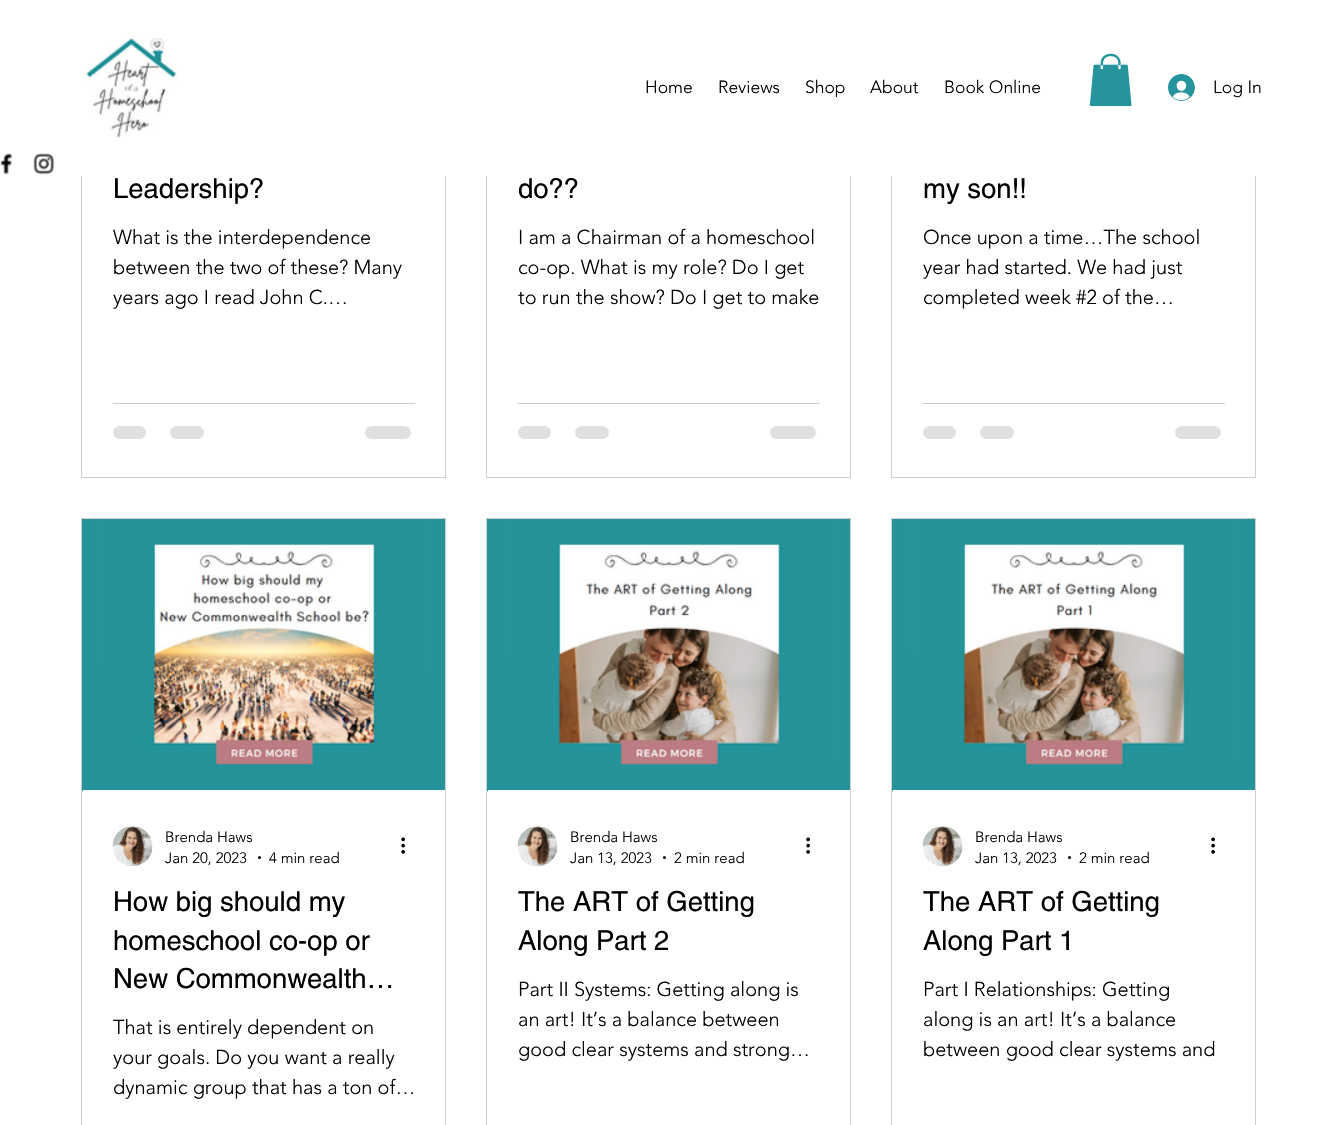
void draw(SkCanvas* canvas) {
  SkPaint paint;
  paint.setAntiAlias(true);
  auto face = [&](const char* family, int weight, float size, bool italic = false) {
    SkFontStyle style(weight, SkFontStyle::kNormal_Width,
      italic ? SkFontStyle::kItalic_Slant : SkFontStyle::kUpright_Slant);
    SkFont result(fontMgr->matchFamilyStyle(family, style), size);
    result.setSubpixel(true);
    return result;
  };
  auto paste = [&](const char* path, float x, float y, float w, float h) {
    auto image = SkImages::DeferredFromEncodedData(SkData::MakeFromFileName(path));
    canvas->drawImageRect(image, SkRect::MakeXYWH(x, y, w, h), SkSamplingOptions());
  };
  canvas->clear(0xffffffff);
  paint.setStroke(true);
  paint.setStrokeWidth(1);
  paint.setColor(0xffcfcfcf);
  canvas->drawRect(SkRect::MakeXYWH(81.5f, -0.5f, 364, 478), paint);
  canvas->drawRect(SkRect::MakeXYWH(486.5f, -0.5f, 364, 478), paint);
  canvas->drawRect(SkRect::MakeXYWH(891.5f, -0.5f, 364, 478), paint);
  paint.setStroke(false);
  paint.setColor(0xffffffff);
  canvas->drawRect(SkRect::MakeXYWH(81, 0, 1175, 176), paint);
  paste("img/1.png", 85, 38, 92, 100);
  paste("img/2.png", 1089, 53, 43, 54);
  paste("img/3.png", 1168, 74, 27, 27);
  paste("img/4.png", 0, 153, 12, 22);
  paste("img/5.png", 33, 153, 22, 22);
  paint.setColor(0xffcccccc);
  canvas->drawRect(SkRect::MakeXYWH(113, 403, 302, 1), paint);
  paint.setColor(0xffe0e0e0);
  canvas->drawRoundRect(SkRect::MakeXYWH(113, 426, 33, 13), 6.5f, 6.5f, paint);
  canvas->drawRoundRect(SkRect::MakeXYWH(170, 426, 34, 13), 6.5f, 6.5f, paint);
  canvas->drawRoundRect(SkRect::MakeXYWH(365, 426, 46, 13), 6.5f, 6.5f, paint);
  paint.setColor(0xffcccccc);
  canvas->drawRect(SkRect::MakeXYWH(518, 403, 302, 1), paint);
  paint.setColor(0xffe0e0e0);
  canvas->drawRoundRect(SkRect::MakeXYWH(518, 426, 33, 13), 6.5f, 6.5f, paint);
  canvas->drawRoundRect(SkRect::MakeXYWH(575, 426, 34, 13), 6.5f, 6.5f, paint);
  canvas->drawRoundRect(SkRect::MakeXYWH(770, 426, 46, 13), 6.5f, 6.5f, paint);
  paint.setColor(0xffcccccc);
  canvas->drawRect(SkRect::MakeXYWH(923, 403, 302, 1), paint);
  paint.setColor(0xffe0e0e0);
  canvas->drawRoundRect(SkRect::MakeXYWH(923, 426, 33, 13), 6.5f, 6.5f, paint);
  canvas->drawRoundRect(SkRect::MakeXYWH(980, 426, 34, 13), 6.5f, 6.5f, paint);
  canvas->drawRoundRect(SkRect::MakeXYWH(1175, 426, 46, 13), 6.5f, 6.5f, paint);
  paint.setStroke(true);
  paint.setColor(0xffcfcfcf);
  canvas->drawRect(SkRect::MakeXYWH(81.5f, 518.5f, 364, 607), paint);
  paste("img/6.png", 82, 519, 363, 273);
  paste("img/7.png", 103, 519, 324, 271);
  paint.setStroke(false);
  paint.setColor(0xffffffff);
  canvas->drawRect(SkRect::MakeXYWH(83, 790, 362, 2), paint);
  paste("img/8.png", 112, 826, 41, 40);
  paint.setColor(0xff000000);
  canvas->drawCircle(259.5f, 857.5f, 1.5f, paint);
  paste("img/9.png", 401, 837, 4, 17);
  paint.setStroke(true);
  paint.setColor(0xffcfcfcf);
  canvas->drawRect(SkRect::MakeXYWH(486.5f, 518.5f, 364, 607), paint);
  paste("img/10.png", 487, 519, 363, 273);
  paste("img/11.png", 508, 519, 324, 271);
  paint.setStroke(false);
  paint.setColor(0xffffffff);
  canvas->drawRect(SkRect::MakeXYWH(488, 790, 362, 2), paint);
  paste("img/8.png", 517, 826, 41, 40);
  paint.setColor(0xff000000);
  canvas->drawCircle(664.5f, 857.5f, 1.5f, paint);
  paste("img/9.png", 806, 837, 4, 17);
  paint.setStroke(true);
  paint.setColor(0xffcfcfcf);
  canvas->drawRect(SkRect::MakeXYWH(891.5f, 518.5f, 364, 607), paint);
  paste("img/12.png", 892, 519, 363, 273);
  paste("img/13.png", 913, 519, 324, 271);
  paint.setStroke(false);
  paint.setColor(0xffffffff);
  canvas->drawRect(SkRect::MakeXYWH(893, 790, 362, 2), paint);
  paste("img/8.png", 922, 826, 41, 40);
  paint.setColor(0xff000000);
  canvas->drawCircle(1069.5f, 857.5f, 1.5f, paint);
  paste("img/9.png", 1211, 837, 4, 17);
  auto f0 = face("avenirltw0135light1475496", 300, 17.5f);
  {
    const struct { const char* s; float x, y; } items[] = {
      {"Home", 645, 93},
      {"Reviews", 718, 93},
      {"Shop", 805, 93},
      {"About", 870, 93},
      {"Book Online", 944, 93},
      {"Log In", 1213, 93},
    };
    for (auto [s, x, y] : items) {
      canvas->drawString(s, x, y, f0, paint);
    }
  }
  auto f1 = face("helvetica", 400, 27.5f);
  canvas->drawString("Leadership?", 113, 198, f1, paint);
  auto f2 = face("avenirltw0135light1475496", 300, 20);
  {
    const struct { const char* s; float x, y; } items[] = {
      {"What is the interdependence", 113, 244},
      {"between the two of these? Many", 113, 274},
      {"years ago I read John C.…", 113, 304},
    };
    for (auto [s, x, y] : items) {
      canvas->drawString(s, x, y, f2, paint);
    }
  }
  canvas->drawString("do?\077", 518, 198, f1, paint);
  {
    const struct { const char* s; float x, y; } items[] = {
      {"I am a Chairman of a homeschool", 518, 244},
      {"co-op. What is my role? Do I get", 518, 274},
      {"to run the show? Do I get to make", 518, 304},
    };
    for (auto [s, x, y] : items) {
      canvas->drawString(s, x, y, f2, paint);
    }
  }
  canvas->drawString("my son!!", 923, 198, f1, paint);
  {
    const struct { const char* s; float x, y; } items[] = {
      {"Once upon a time…The school", 923, 244},
      {"year had started. We had just", 923, 274},
      {"completed week #2 of the…", 923, 304},
    };
    for (auto [s, x, y] : items) {
      canvas->drawString(s, x, y, f2, paint);
    }
  }
  auto f3 = face("avenirltw0135light1475496", 300, 15);
  {
    const struct { const char* s; float x, y; } items[] = {
      {"Brenda Haws", 165, 842},
      {"Jan 20, 2023", 165, 863},
      {"4 min read", 269, 863},
    };
    for (auto [s, x, y] : items) {
      canvas->drawString(s, x, y, f3, paint);
    }
  }
  {
    const struct { const char* s; float x, y; } items[] = {
      {"How big should my", 113, 911},
      {"homeschool co-op or", 113, 950},
      {"New Commonwealth…", 113, 988},
    };
    for (auto [s, x, y] : items) {
      canvas->drawString(s, x, y, f1, paint);
    }
  }
  {
    const struct { const char* s; float x, y; } items[] = {
      {"That is entirely dependent on", 113, 1034},
      {"your goals. Do you want a really", 113, 1064},
      {"dynamic group that has a ton of…", 113, 1094},
    };
    for (auto [s, x, y] : items) {
      canvas->drawString(s, x, y, f2, paint);
    }
  }
  {
    const struct { const char* s; float x, y; } items[] = {
      {"Brenda Haws", 570, 842},
      {"Jan 13, 2023", 570, 863},
      {"2 min read", 674, 863},
    };
    for (auto [s, x, y] : items) {
      canvas->drawString(s, x, y, f3, paint);
    }
  }
  canvas->save();
  canvas->clipRect(SkRect::MakeXYWH(518, 884, 302, 76));
  canvas->drawString("The ART of Getting", 518, 911, f1, paint);
  canvas->restore();
  canvas->drawString("Along Part 2", 518, 950, f1, paint);
  {
    const struct { const char* s; float x, y; } items[] = {
      {"Part II Systems: Getting along is", 518, 996},
      {"an art! It’s a balance between", 518, 1026},
      {"good clear systems and strong…", 518, 1056},
    };
    for (auto [s, x, y] : items) {
      canvas->drawString(s, x, y, f2, paint);
    }
  }
  {
    const struct { const char* s; float x, y; } items[] = {
      {"Brenda Haws", 975, 842},
      {"Jan 13, 2023", 975, 863},
      {"2 min read", 1079, 863},
    };
    for (auto [s, x, y] : items) {
      canvas->drawString(s, x, y, f3, paint);
    }
  }
  canvas->save();
  canvas->clipRect(SkRect::MakeXYWH(923, 884, 302, 76));
  canvas->drawString("The ART of Getting", 923, 911, f1, paint);
  canvas->restore();
  canvas->drawString("Along Part 1", 923, 950, f1, paint);
  {
    const struct { const char* s; float x, y; } items[] = {
      {"Part I Relationships: Getting", 923, 996},
      {"along is an art! It’s a balance", 923, 1026},
      {"between good clear systems and", 923, 1056},
    };
    for (auto [s, x, y] : items) {
      canvas->drawString(s, x, y, f2, paint);
    }
  }
}
